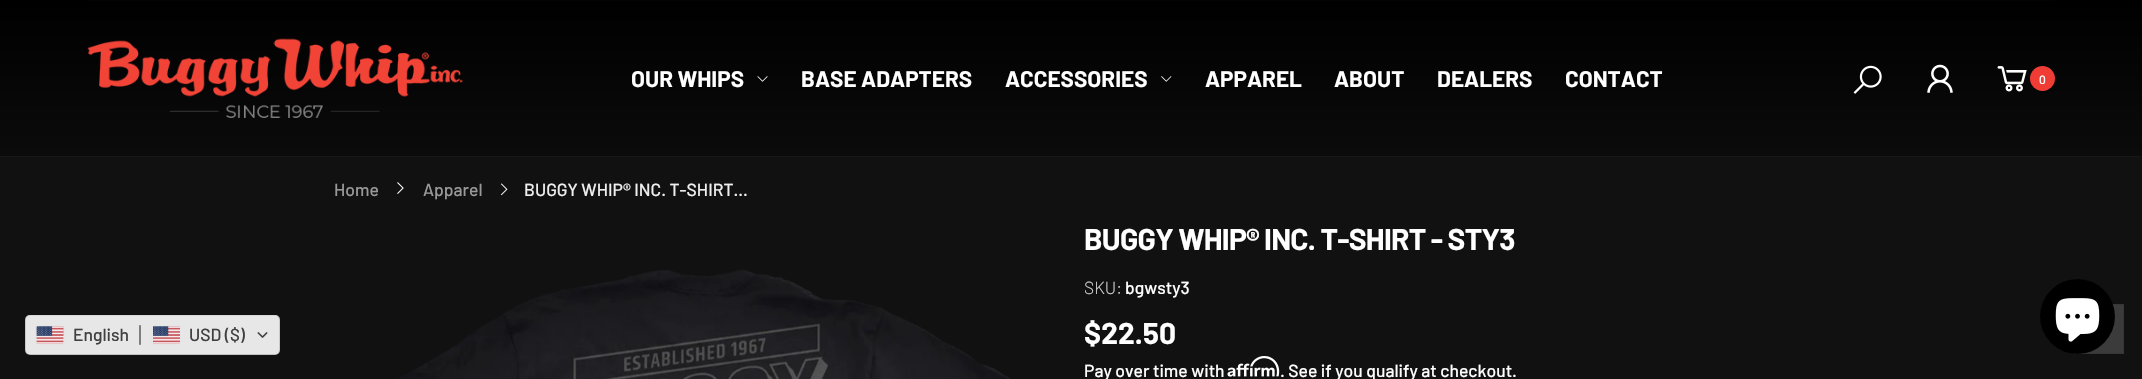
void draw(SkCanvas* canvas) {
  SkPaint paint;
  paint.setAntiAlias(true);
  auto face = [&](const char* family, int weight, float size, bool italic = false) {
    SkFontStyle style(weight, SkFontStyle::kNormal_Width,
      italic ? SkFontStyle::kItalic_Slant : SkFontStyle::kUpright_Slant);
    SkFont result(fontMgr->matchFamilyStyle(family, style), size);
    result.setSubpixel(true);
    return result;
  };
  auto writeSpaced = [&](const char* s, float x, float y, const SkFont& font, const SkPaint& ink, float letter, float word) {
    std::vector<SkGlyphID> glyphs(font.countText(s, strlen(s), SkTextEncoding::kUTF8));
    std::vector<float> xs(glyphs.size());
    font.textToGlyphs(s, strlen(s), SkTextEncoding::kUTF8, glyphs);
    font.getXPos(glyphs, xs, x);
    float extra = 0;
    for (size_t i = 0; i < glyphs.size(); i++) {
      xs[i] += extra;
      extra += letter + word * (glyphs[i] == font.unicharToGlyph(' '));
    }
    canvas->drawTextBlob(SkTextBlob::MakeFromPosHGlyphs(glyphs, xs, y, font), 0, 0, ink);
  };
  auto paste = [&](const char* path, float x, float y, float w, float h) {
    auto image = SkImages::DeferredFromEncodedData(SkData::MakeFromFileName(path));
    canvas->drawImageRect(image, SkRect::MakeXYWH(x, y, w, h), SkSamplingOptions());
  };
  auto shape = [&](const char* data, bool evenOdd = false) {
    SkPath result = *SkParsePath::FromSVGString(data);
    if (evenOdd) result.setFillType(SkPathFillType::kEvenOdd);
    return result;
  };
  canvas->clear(0xff111111);
  {
    const SkColor colors[] = {0xff0b0b0b, 0xff000000};
    const float stops[] = {0, 1};
    const SkPoint ends[] = {{1071, 156}, {1071, 0}};
    paint.setShader(SkGradientShader::MakeLinear(ends, colors, stops, 2, SkTileMode::kClamp));
    paint.setAlpha(255);
  }
  canvas->drawRect(SkRect::MakeXYWH(0, 0, 2142, 156), paint);
  paint.setShader(nullptr);
  paint.setColor(0xff030303);
  canvas->drawRect(SkRect::MakeXYWH(88, 0, 1967, 1), paint);
  paste("img/1.png", 87, 38, 376, 80);
  paste("img/2.png", 757, 76, 11, 6);
  paste("img/3.png", 1161, 76, 11, 6);
  paste("img/4.png", 1853, 65, 29, 29);
  paste("img/5.png", 1927, 64, 26, 29);
  paste("img/6.png", 1997, 66, 30, 26);
  paint.setColor(0xffef3d35);
  canvas->drawCircle(2042.5f, 78.5f, 12.5f, paint);
  paint.setColor(0xff161616);
  canvas->drawRect(SkRect::MakeXYWH(0, 156, 2142, 1), paint);
  paste("img/7.png", 397, 182, 7, 12);
  paste("img/8.png", 500, 183, 8, 13);
  paste("img/9.png", 398, 269, 613, 110);
  paste("img/11.png", 1227, 363, 48, 14);
  paste("img/10.png", 1250, 356, 30, 21);
  paint.setColor(0xff3b3b3b);
  canvas->drawRect(SkRect::MakeXYWH(2086, 305, 37, 48), paint);
  paint.setStroke(true);
  paint.setStrokeWidth(1);
  paint.setColor(0xff363637);
  canvas->drawRect(SkRect::MakeXYWH(2074.5f, 304.5f, 49, 49), paint);
  paint.setStroke(false);
  paint.setColor(0xff000000);
  canvas->drawCircle(2077.5f, 316.5f, 37.5f, paint);
  paste("img/12.png", 2055, 298, 45, 44);
  paint.setColor(0xffe7e7e7);
  canvas->drawRoundRect(SkRect::MakeXYWH(25, 315, 255, 40), 5, 5, paint);
  paint.setColor(0x80cccccc);
  canvas->drawPath(shape("M30 316H275C278 316 280 318 280 321V320C280 317 278 315 275 315H30C27 315 25 317 25 320V321C25 318 27 316 30 316Z"), paint);
  paint.setColor(0x2b000000);
  canvas->drawPath(shape("M25 349V350C25 353 27 355 30 355H275C278 355 280 353 280 350V349C280 352 278 354 275 354H30C27 354 25 352 25 349Z"), paint);
  paint.setColor(0x21000000);
  canvas->drawPath(shape("M274 355C281 355 280 350 280 345V325C280 320 281 315 274 315C277 315 279 317 279 320V350C279 353 277 355 274 355Z"), paint);
  canvas->drawPath(shape("M30 315C27 315 25 317 25 320V350C25 353 27 355 30 355H31C28 355 26 353 26 350V320C26 317 28 315 31 315Z"), paint);
  paint.setStroke(true);
  paint.setColor(0xffe4e5e6);
  canvas->drawRoundRect(SkRect::MakeXYWH(35.5f, 325.5f, 29, 19), 2, 2, paint);
  paste("img/13.png", 36, 326, 28, 18);
  paste("img/14.png", 139, 325, 2, 20);
  canvas->drawRoundRect(SkRect::MakeXYWH(151.5f, 325.5f, 29, 19), 2, 2, paint);
  paste("img/15.png", 153, 326, 27, 18);
  paste("img/16.png", 257, 332, 11, 6);
  auto f0 = face("Barlow", 700, 22.5f);
  paint.setStroke(false);
  paint.setColor(0xffffffff);
  {
    const struct { const char* s; float x, y; } items[] = {
      {"OUR WHIPS", 631, 87},
      {"BASE ADAPTERS", 801, 87},
      {"ACCESSORIES", 1005, 87},
      {"APPAREL", 1205, 87},
      {"ABOUT", 1334, 87},
      {"DEALERS", 1437, 87},
      {"CONTACT", 1565, 87},
    };
    for (auto [s, x, y] : items) {
      canvas->drawString(s, x, y, f0, paint);
    }
  }
  auto f1 = face("Barlow", 500, 12);
  canvas->drawString("0", 2039, 84, f1, paint);
  auto f2 = face("Barlow", 500, 17.5f);
  paint.setColor(0xff999999);
  canvas->drawString("Home", 334, 196, f2, paint);
  canvas->drawString("Apparel", 423, 196, f2, paint);
  paint.setColor(0xffeeeeee);
  canvas->drawString("BUGGY WHIP® INC. T-SHIRT...", 524, 196, f2, paint);
  auto f3 = face("Barlow", 700, 30);
  paint.setColor(0xffffffff);
  writeSpaced("BUGGY WHIP® INC. T-SHIRT - STY3", 1084, 250, f3, paint, -0.75f, 0);
  auto f4 = face("Barlow", 300, 17.5f);
  paint.setColor(0xffcccccc);
  canvas->drawString("SKU:", 1084, 294, f4, paint);
  paint.setColor(0xffffffff);
  canvas->drawString("bgwsty3", 1125, 294, f2, paint);
  canvas->drawString("$22.50", 1084, 344, f3, paint);
  canvas->drawString("Pay over time with", 1084, 377, f2, paint);
  canvas->drawString(". See if you qualify at checkout.", 1280, 377, f2, paint);
  paint.setColor(0xff404040);
  canvas->drawString("English", 73, 341, f2, paint);
  canvas->drawString("USD ($)", 189, 341, f2, paint);
}
